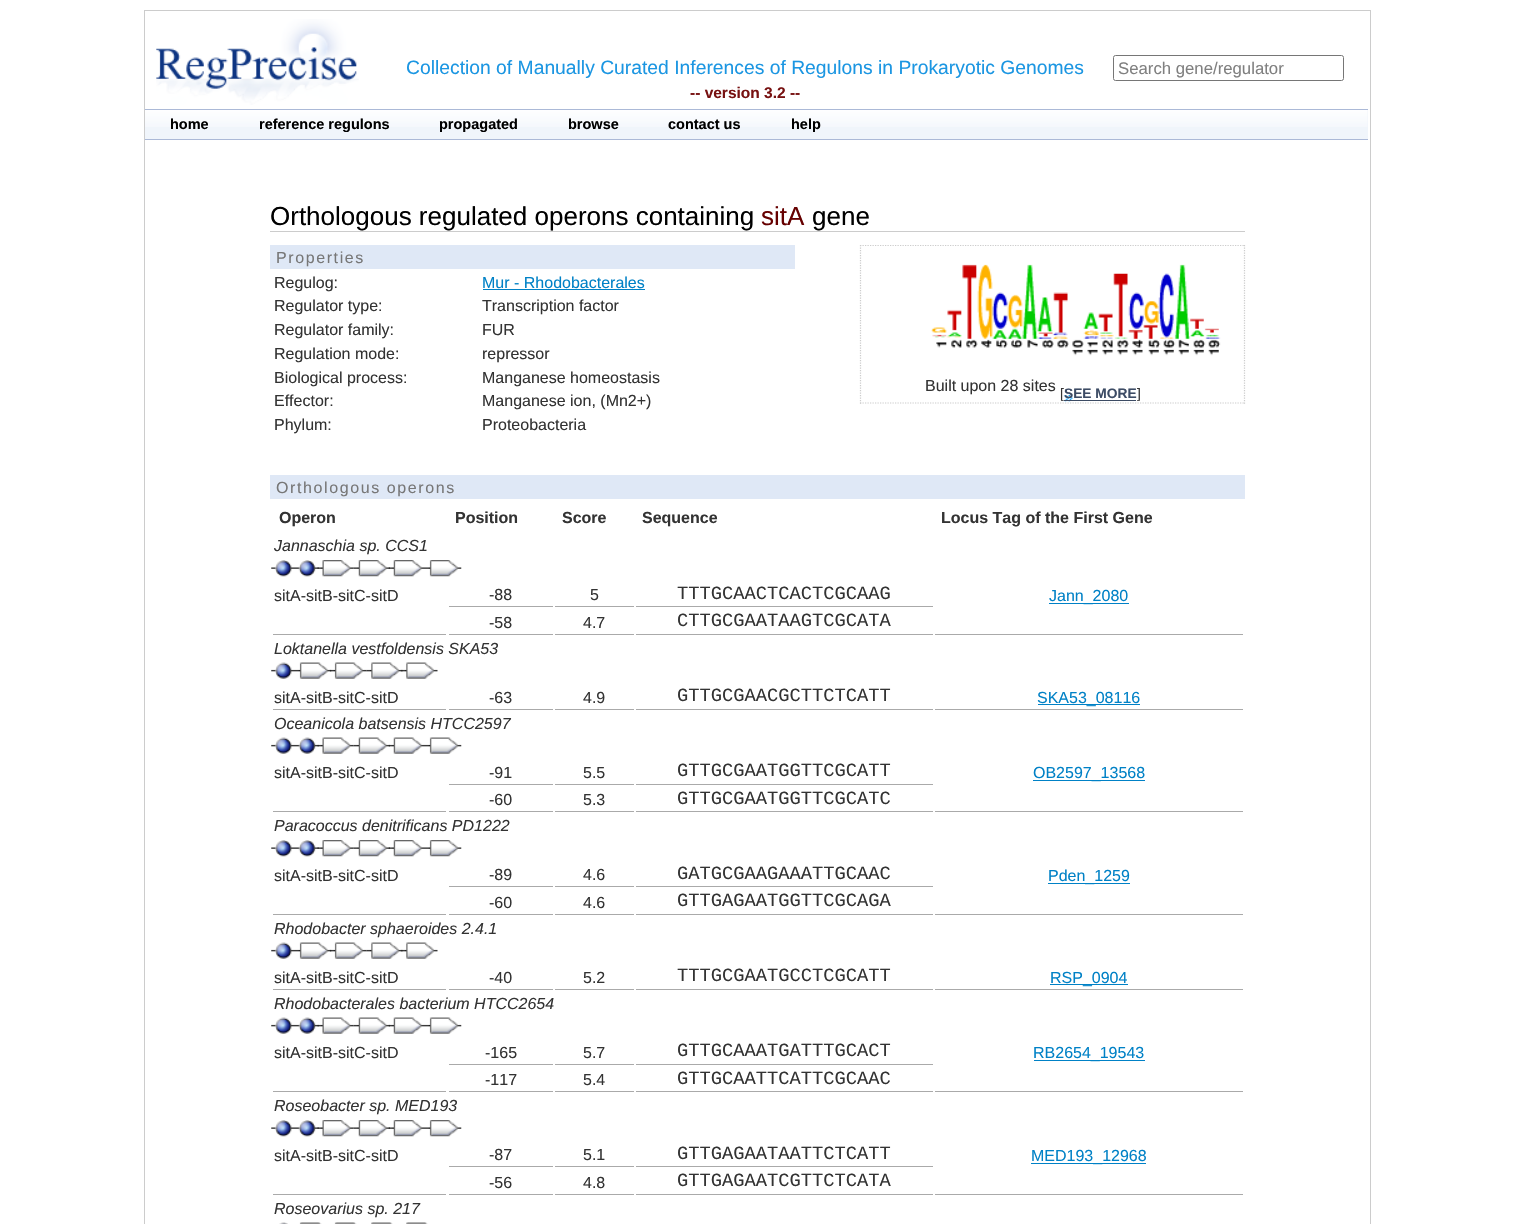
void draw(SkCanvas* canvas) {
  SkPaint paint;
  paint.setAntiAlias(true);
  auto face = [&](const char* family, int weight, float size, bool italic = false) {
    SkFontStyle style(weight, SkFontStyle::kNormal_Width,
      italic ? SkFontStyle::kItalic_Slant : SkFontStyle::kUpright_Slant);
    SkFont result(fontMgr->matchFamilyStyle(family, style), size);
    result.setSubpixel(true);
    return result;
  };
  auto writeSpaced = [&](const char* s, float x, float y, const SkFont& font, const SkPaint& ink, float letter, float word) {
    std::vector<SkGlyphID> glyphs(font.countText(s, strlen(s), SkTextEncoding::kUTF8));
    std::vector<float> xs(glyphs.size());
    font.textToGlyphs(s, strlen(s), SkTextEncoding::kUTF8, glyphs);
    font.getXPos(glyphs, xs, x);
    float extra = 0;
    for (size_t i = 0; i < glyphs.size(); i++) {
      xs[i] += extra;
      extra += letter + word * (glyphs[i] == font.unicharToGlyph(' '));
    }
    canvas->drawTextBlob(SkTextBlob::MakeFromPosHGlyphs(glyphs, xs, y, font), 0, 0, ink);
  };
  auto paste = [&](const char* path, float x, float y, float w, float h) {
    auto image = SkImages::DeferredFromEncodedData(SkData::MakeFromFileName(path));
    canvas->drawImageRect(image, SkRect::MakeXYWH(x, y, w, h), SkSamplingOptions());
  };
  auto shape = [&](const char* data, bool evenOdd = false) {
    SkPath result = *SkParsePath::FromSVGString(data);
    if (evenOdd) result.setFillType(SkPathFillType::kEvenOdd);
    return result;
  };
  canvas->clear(0xffffffff);
  paint.setStroke(true);
  paint.setStrokeWidth(1);
  paint.setColor(0xffcccccc);
  canvas->drawRect(SkRect::MakeXYWH(144.5f, 10.5f, 1226, 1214), paint);
  paste("img/1.png", 156, 19, 203, 86);
  paint.setColor(0xff767676);
  canvas->drawRoundRect(SkRect::MakeXYWH(1113.5f, 55.5f, 230, 25), 2, 2, paint);
  paint.setStroke(false);
  paint.setColor(0xfff0f5fb);
  canvas->drawRect(SkRect::MakeXYWH(145, 110, 1223, 29), paint);
  paste("img/2.png", 145, 110, 1223, 17);
  {
    const struct { float x, y, w, h; SkColor color; } items[] = {
      {145, 109, 1223, 1, 0xffabb9d7},
      {145, 139, 1223, 1, 0xffabb9d7},
      {270, 231, 975, 1, 0xffcccccc},
      {270, 245, 525, 24, 0xffdfe8f6},
      {483, 289, 162, 1, 0xff0081c6},
    };
    for (auto [x, y, w, h, color] : items) {
      paint.setColor(color);
      canvas->drawRect(SkRect::MakeXYWH(x, y, w, h), paint);
    }
  }
  paint.setStroke(true);
  paint.setStrokeWidth(1.2f);
  paint.setColor(0xffcccccc);
  paint.setPathEffect(SkDashPathEffect::Make({{1.25f, 1.25f}}, 0));
  canvas->drawPath(shape("M860 245.5H1245"), paint);
  paint.setPathEffect(nullptr);
  paint.setPathEffect(SkDashPathEffect::Make({{1.25f, 1.25f}}, 0));
  canvas->drawPath(shape("M1244.5 245V404"), paint);
  paint.setPathEffect(nullptr);
  paint.setPathEffect(SkDashPathEffect::Make({{1.25f, 1.25f}}, 0));
  canvas->drawPath(shape("M860 403H1245"), paint);
  paint.setPathEffect(nullptr);
  paint.setPathEffect(SkDashPathEffect::Make({{1.25f, 1.25f}}, 0));
  canvas->drawPath(shape("M860.5 245V404"), paint);
  paint.setPathEffect(nullptr);
  paste("img/3.png", 931, 264, 290, 92);
  paint.setStroke(false);
  paint.setColor(0xffdfe8f6);
  canvas->drawRect(SkRect::MakeXYWH(270, 475, 975, 24), paint);
  paste("img/5.png", 271, 560, 24, 17);
  paste("img/6.png", 295, 560, 24, 17);
  paste("img/7.png", 317, 560, 37, 17);
  paste("img/8.png", 353, 560, 37, 17);
  paste("img/9.png", 388, 560, 37, 17);
  paste("img/10.png", 425, 560, 37, 17);
  {
    const struct { float x, y, w, h; SkColor color; } items[] = {
      {449, 606, 104, 1, 0xffaaaaaa},
      {555, 606, 79, 1, 0xffaaaaaa},
      {636, 606, 297, 1, 0xffaaaaaa},
      {1049, 603, 80, 1, 0xff0081c6},
      {449, 634, 104, 1, 0xffaaaaaa},
      {555, 634, 79, 1, 0xffaaaaaa},
      {636, 634, 297, 1, 0xffaaaaaa},
      {273, 634, 173, 1, 0xffaaaaaa},
      {935, 634, 308, 1, 0xffaaaaaa},
    };
    for (auto [x, y, w, h, color] : items) {
      paint.setColor(color);
      canvas->drawRect(SkRect::MakeXYWH(x, y, w, h), paint);
    }
  }
  paste("img/11.png", 271, 662, 24, 17);
  paste("img/12.png", 295, 662, 37, 17);
  paste("img/13.png", 330, 662, 37, 17);
  paste("img/14.png", 366, 662, 37, 17);
  paste("img/15.png", 401, 662, 37, 17);
  {
    const struct { float x, y, w, h; SkColor color; } items[] = {
      {273, 709, 173, 1, 0xffaaaaaa},
      {449, 709, 104, 1, 0xffaaaaaa},
      {555, 709, 79, 1, 0xffaaaaaa},
      {636, 709, 297, 1, 0xffaaaaaa},
      {935, 709, 308, 1, 0xffaaaaaa},
      {1038, 704, 102, 1, 0xff0081c6},
    };
    for (auto [x, y, w, h, color] : items) {
      paint.setColor(color);
      canvas->drawRect(SkRect::MakeXYWH(x, y, w, h), paint);
    }
  }
  paste("img/11.png", 271, 737, 24, 17);
  paste("img/16.png", 295, 737, 24, 17);
  paste("img/17.png", 317, 737, 37, 17);
  paste("img/18.png", 353, 737, 37, 17);
  paste("img/19.png", 388, 737, 37, 17);
  paste("img/20.png", 425, 737, 37, 17);
  {
    const struct { float x, y, w, h; SkColor color; } items[] = {
      {449, 784, 104, 1, 0xffaaaaaa},
      {555, 784, 79, 1, 0xffaaaaaa},
      {636, 784, 297, 1, 0xffaaaaaa},
      {1033, 780, 112, 1, 0xff0081c6},
      {449, 811, 104, 1, 0xffaaaaaa},
      {555, 811, 79, 1, 0xffaaaaaa},
      {636, 811, 297, 1, 0xffaaaaaa},
      {273, 811, 173, 1, 0xffaaaaaa},
      {935, 811, 308, 1, 0xffaaaaaa},
    };
    for (auto [x, y, w, h, color] : items) {
      paint.setColor(color);
      canvas->drawRect(SkRect::MakeXYWH(x, y, w, h), paint);
    }
  }
  paste("img/5.png", 271, 840, 24, 17);
  paste("img/6.png", 295, 840, 24, 17);
  paste("img/7.png", 317, 840, 37, 17);
  paste("img/8.png", 353, 840, 37, 17);
  paste("img/9.png", 388, 840, 37, 17);
  paste("img/10.png", 425, 840, 37, 17);
  {
    const struct { float x, y, w, h; SkColor color; } items[] = {
      {449, 886, 104, 1, 0xffaaaaaa},
      {555, 886, 79, 1, 0xffaaaaaa},
      {636, 886, 297, 1, 0xffaaaaaa},
      {1048, 883, 82, 1, 0xff0081c6},
      {449, 914, 104, 1, 0xffaaaaaa},
      {555, 914, 79, 1, 0xffaaaaaa},
      {636, 914, 297, 1, 0xffaaaaaa},
      {273, 914, 173, 1, 0xffaaaaaa},
      {935, 914, 308, 1, 0xffaaaaaa},
    };
    for (auto [x, y, w, h, color] : items) {
      paint.setColor(color);
      canvas->drawRect(SkRect::MakeXYWH(x, y, w, h), paint);
    }
  }
  paste("img/11.png", 271, 942, 24, 17);
  paste("img/12.png", 295, 942, 37, 17);
  paste("img/13.png", 330, 942, 37, 17);
  paste("img/14.png", 366, 942, 37, 17);
  paste("img/15.png", 401, 942, 37, 17);
  {
    const struct { float x, y, w, h; SkColor color; } items[] = {
      {273, 989, 173, 1, 0xffaaaaaa},
      {449, 989, 104, 1, 0xffaaaaaa},
      {555, 989, 79, 1, 0xffaaaaaa},
      {636, 989, 297, 1, 0xffaaaaaa},
      {935, 989, 308, 1, 0xffaaaaaa},
      {1050, 984, 78, 1, 0xff0081c6},
    };
    for (auto [x, y, w, h, color] : items) {
      paint.setColor(color);
      canvas->drawRect(SkRect::MakeXYWH(x, y, w, h), paint);
    }
  }
  paste("img/11.png", 271, 1017, 24, 17);
  paste("img/16.png", 295, 1017, 24, 17);
  paste("img/17.png", 317, 1017, 37, 17);
  paste("img/18.png", 353, 1017, 37, 17);
  paste("img/19.png", 388, 1017, 37, 17);
  paste("img/20.png", 425, 1017, 37, 17);
  {
    const struct { float x, y, w, h; SkColor color; } items[] = {
      {449, 1064, 104, 1, 0xffaaaaaa},
      {555, 1064, 79, 1, 0xffaaaaaa},
      {636, 1064, 297, 1, 0xffaaaaaa},
      {1034, 1060, 111, 1, 0xff0081c6},
      {449, 1091, 104, 1, 0xffaaaaaa},
      {555, 1091, 79, 1, 0xffaaaaaa},
      {636, 1091, 297, 1, 0xffaaaaaa},
      {273, 1091, 173, 1, 0xffaaaaaa},
      {935, 1091, 308, 1, 0xffaaaaaa},
    };
    for (auto [x, y, w, h, color] : items) {
      paint.setColor(color);
      canvas->drawRect(SkRect::MakeXYWH(x, y, w, h), paint);
    }
  }
  paste("img/5.png", 271, 1120, 24, 17);
  paste("img/6.png", 295, 1120, 24, 17);
  paste("img/7.png", 317, 1120, 37, 17);
  paste("img/8.png", 353, 1120, 37, 17);
  paste("img/9.png", 388, 1120, 37, 17);
  paste("img/10.png", 425, 1120, 37, 17);
  {
    const struct { float x, y, w, h; SkColor color; } items[] = {
      {449, 1166, 104, 1, 0xffaaaaaa},
      {555, 1166, 79, 1, 0xffaaaaaa},
      {636, 1166, 297, 1, 0xffaaaaaa},
      {1031, 1163, 115, 1, 0xff0081c6},
      {449, 1194, 104, 1, 0xffaaaaaa},
      {555, 1194, 79, 1, 0xffaaaaaa},
      {636, 1194, 297, 1, 0xffaaaaaa},
      {273, 1194, 173, 1, 0xffaaaaaa},
      {935, 1194, 308, 1, 0xffaaaaaa},
    };
    for (auto [x, y, w, h, color] : items) {
      paint.setColor(color);
      canvas->drawRect(SkRect::MakeXYWH(x, y, w, h), paint);
    }
  }
  paste("img/21.png", 279, 1222, 9, 2);
  paste("img/22.png", 299, 1222, 23, 2);
  paste("img/22.png", 334, 1222, 23, 2);
  paste("img/23.png", 371, 1222, 22, 2);
  paste("img/23.png", 406, 1222, 22, 2);
  auto f0 = face("Liberation Sans", 400, 19.3f);
  paint.setColor(0xff1b96e2);
  canvas->drawString("Collection of Manually Curated Inferences of Regulons in Prokaryotic Genomes", 406, 74, f0, paint);
  auto f1 = face("Liberation Sans", 700, 15.5f);
  paint.setColor(0xff771111);
  canvas->drawString("-- version 3.2 --", 690, 98, f1, paint);
  auto f2 = face("Liberation Sans", 400, 16.75f);
  paint.setColor(0xff808080);
  canvas->drawString("Search gene/regulator", 1118, 74, f2, paint);
  auto f3 = face("Liberation Sans", 700, 14.5f);
  paint.setColor(0xff000000);
  {
    const struct { const char* s; float x, y; } items[] = {
      {"home", 170, 129},
      {"reference regulons", 259, 129},
      {"propagated", 439, 129},
      {"browse", 568, 129},
      {"contact us", 668, 129},
      {"help", 791, 129},
    };
    for (auto [s, x, y] : items) {
      canvas->drawString(s, x, y, f3, paint);
    }
  }
  auto f4 = face("Liberation Sans", 400, 26);
  canvas->drawString("Orthologous regulated operons containing", 270, 225, f4, paint);
  paint.setColor(0xff660000);
  canvas->drawString("sitA", 761, 225, f4, paint);
  paint.setColor(0xff000000);
  canvas->drawString("gene", 812, 225, f4, paint);
  auto f5 = face("Liberation Sans", 400, 16);
  paint.setColor(0xff777777);
  writeSpaced("Properties", 276, 263, f5, paint, 1.6f, 0);
  paint.setColor(0xff333333);
  canvas->drawString("Regulog:", 274, 288, f5, paint);
  paint.setColor(0xff0081c6);
  canvas->drawString("Mur - Rhodobacterales", 482, 288, f5, paint);
  paint.setColor(0xff333333);
  {
    const struct { const char* s; float x, y; } items[] = {
      {"Regulator type:", 274, 311},
      {"Transcription factor", 482, 311},
      {"Regulator family:", 274, 335},
      {"FUR", 482, 335},
      {"Regulation mode:", 274, 359},
      {"repressor", 482, 359},
      {"Biological process:", 274, 383},
      {"Manganese homeostasis", 482, 383},
      {"Effector:", 274, 406},
      {"Manganese ion, (Mn2+)", 482, 406},
      {"Phylum:", 274, 430},
      {"Proteobacteria", 482, 430},
      {"Built upon 28 sites", 925, 391},
    };
    for (auto [s, x, y] : items) {
      canvas->drawString(s, x, y, f5, paint);
    }
  }
  auto f6 = face("Liberation Sans", 400, 13.75f);
  canvas->drawString("[", 1060, 398, f6, paint);
  paste("img/4.png", 1063, 395, 10, 7);
  auto f7 = face("Liberation Sans", 700, 13.75f);
  paint.setColor(0xff3c4b64);
  canvas->drawString("SEE MORE", 1064, 398, f7, paint);
  paint.setColor(0xff333333);
  canvas->drawString("]", 1137, 398, f6, paint);
  paint.setColor(0xff3c4b64);
  canvas->drawRect(SkRect::MakeXYWH(1064, 400, 72, 1), paint);
  paint.setColor(0xff777777);
  writeSpaced("Orthologous operons", 276, 493, f5, paint, 1.6f, 0);
  auto f8 = face("Liberation Sans", 700, 16);
  paint.setColor(0xff333333);
  {
    const struct { const char* s; float x, y; } items[] = {
      {"Operon", 279, 523},
      {"Position", 455, 523},
      {"Score", 562, 523},
      {"Sequence", 642, 523},
      {"Locus Tag of the First Gene", 941, 523},
    };
    for (auto [s, x, y] : items) {
      canvas->drawString(s, x, y, f8, paint);
    }
  }
  auto f9 = face("Liberation Sans", 400, 16, true);
  canvas->drawString("Jannaschia sp. CCS1", 274, 551, f9, paint);
  {
    const struct { const char* s; float x, y; } items[] = {
      {"sitA-sitB-sitC-sitD", 274, 601},
      {"-88", 489, 600},
      {"5", 590, 600},
    };
    for (auto [s, x, y] : items) {
      canvas->drawString(s, x, y, f5, paint);
    }
  }
  auto f10 = face("Liberation Mono", 400, 18.75f);
  canvas->drawString("TTTGCAACTCACTCGCAAG", 677, 599, f10, paint);
  paint.setColor(0xff0081c6);
  canvas->drawString("Jann_2080", 1049, 601, f5, paint);
  paint.setColor(0xff333333);
  canvas->drawString("-58", 489, 628, f5, paint);
  canvas->drawString("4.7", 583, 628, f5, paint);
  canvas->drawString("CTTGCGAATAAGTCGCATA", 677, 626, f10, paint);
  canvas->drawString("Loktanella vestfoldensis SKA53", 274, 654, f9, paint);
  {
    const struct { const char* s; float x, y; } items[] = {
      {"sitA-sitB-sitC-sitD", 274, 703},
      {"-63", 489, 703},
      {"4.9", 583, 703},
    };
    for (auto [s, x, y] : items) {
      canvas->drawString(s, x, y, f5, paint);
    }
  }
  canvas->drawString("GTTGCGAACGCTTCTCATT", 677, 701, f10, paint);
  paint.setColor(0xff0081c6);
  canvas->drawString("SKA53_08116", 1037, 703, f5, paint);
  paint.setColor(0xff333333);
  canvas->drawString("Oceanicola batsensis HTCC2597", 274, 729, f9, paint);
  {
    const struct { const char* s; float x, y; } items[] = {
      {"sitA-sitB-sitC-sitD", 274, 778},
      {"-91", 489, 778},
      {"5.5", 583, 778},
    };
    for (auto [s, x, y] : items) {
      canvas->drawString(s, x, y, f5, paint);
    }
  }
  canvas->drawString("GTTGCGAATGGTTCGCATT", 677, 776, f10, paint);
  paint.setColor(0xff0081c6);
  canvas->drawString("OB2597_13568", 1033, 778, f5, paint);
  paint.setColor(0xff333333);
  canvas->drawString("-60", 489, 805, f5, paint);
  canvas->drawString("5.3", 583, 805, f5, paint);
  canvas->drawString("GTTGCGAATGGTTCGCATC", 677, 804, f10, paint);
  canvas->drawString("Paracoccus denitrificans PD1222", 274, 831, f9, paint);
  {
    const struct { const char* s; float x, y; } items[] = {
      {"sitA-sitB-sitC-sitD", 274, 881},
      {"-89", 489, 880},
      {"4.6", 583, 880},
    };
    for (auto [s, x, y] : items) {
      canvas->drawString(s, x, y, f5, paint);
    }
  }
  canvas->drawString("GATGCGAAGAAATTGCAAC", 677, 879, f10, paint);
  paint.setColor(0xff0081c6);
  canvas->drawString("Pden_1259", 1048, 881, f5, paint);
  paint.setColor(0xff333333);
  canvas->drawString("-60", 489, 908, f5, paint);
  canvas->drawString("4.6", 583, 908, f5, paint);
  canvas->drawString("GTTGAGAATGGTTCGCAGA", 677, 906, f10, paint);
  canvas->drawString("Rhodobacter sphaeroides 2.4.1", 274, 934, f9, paint);
  {
    const struct { const char* s; float x, y; } items[] = {
      {"sitA-sitB-sitC-sitD", 274, 983},
      {"-40", 489, 983},
      {"5.2", 583, 983},
    };
    for (auto [s, x, y] : items) {
      canvas->drawString(s, x, y, f5, paint);
    }
  }
  canvas->drawString("TTTGCGAATGCCTCGCATT", 677, 981, f10, paint);
  paint.setColor(0xff0081c6);
  canvas->drawString("RSP_0904", 1050, 983, f5, paint);
  paint.setColor(0xff333333);
  canvas->drawString("Rhodobacterales bacterium HTCC2654", 274, 1009, f9, paint);
  {
    const struct { const char* s; float x, y; } items[] = {
      {"sitA-sitB-sitC-sitD", 274, 1058},
      {"-165", 485, 1058},
      {"5.7", 583, 1058},
    };
    for (auto [s, x, y] : items) {
      canvas->drawString(s, x, y, f5, paint);
    }
  }
  canvas->drawString("GTTGCAAATGATTTGCACT", 677, 1056, f10, paint);
  paint.setColor(0xff0081c6);
  canvas->drawString("RB2654_19543", 1033, 1058, f5, paint);
  paint.setColor(0xff333333);
  canvas->drawString("-117", 485, 1085, f5, paint);
  canvas->drawString("5.4", 583, 1085, f5, paint);
  canvas->drawString("GTTGCAATTCATTCGCAAC", 677, 1084, f10, paint);
  canvas->drawString("Roseobacter sp. MED193", 274, 1111, f9, paint);
  {
    const struct { const char* s; float x, y; } items[] = {
      {"sitA-sitB-sitC-sitD", 274, 1161},
      {"-87", 489, 1160},
      {"5.1", 583, 1160},
    };
    for (auto [s, x, y] : items) {
      canvas->drawString(s, x, y, f5, paint);
    }
  }
  canvas->drawString("GTTGAGAATAATTCTCATT", 677, 1159, f10, paint);
  paint.setColor(0xff0081c6);
  canvas->drawString("MED193_12968", 1031, 1161, f5, paint);
  paint.setColor(0xff333333);
  canvas->drawString("-56", 489, 1188, f5, paint);
  canvas->drawString("4.8", 583, 1188, f5, paint);
  canvas->drawString("GTTGAGAATCGTTCTCATA", 677, 1186, f10, paint);
  canvas->drawString("Roseovarius sp. 217", 274, 1214, f9, paint);
}
